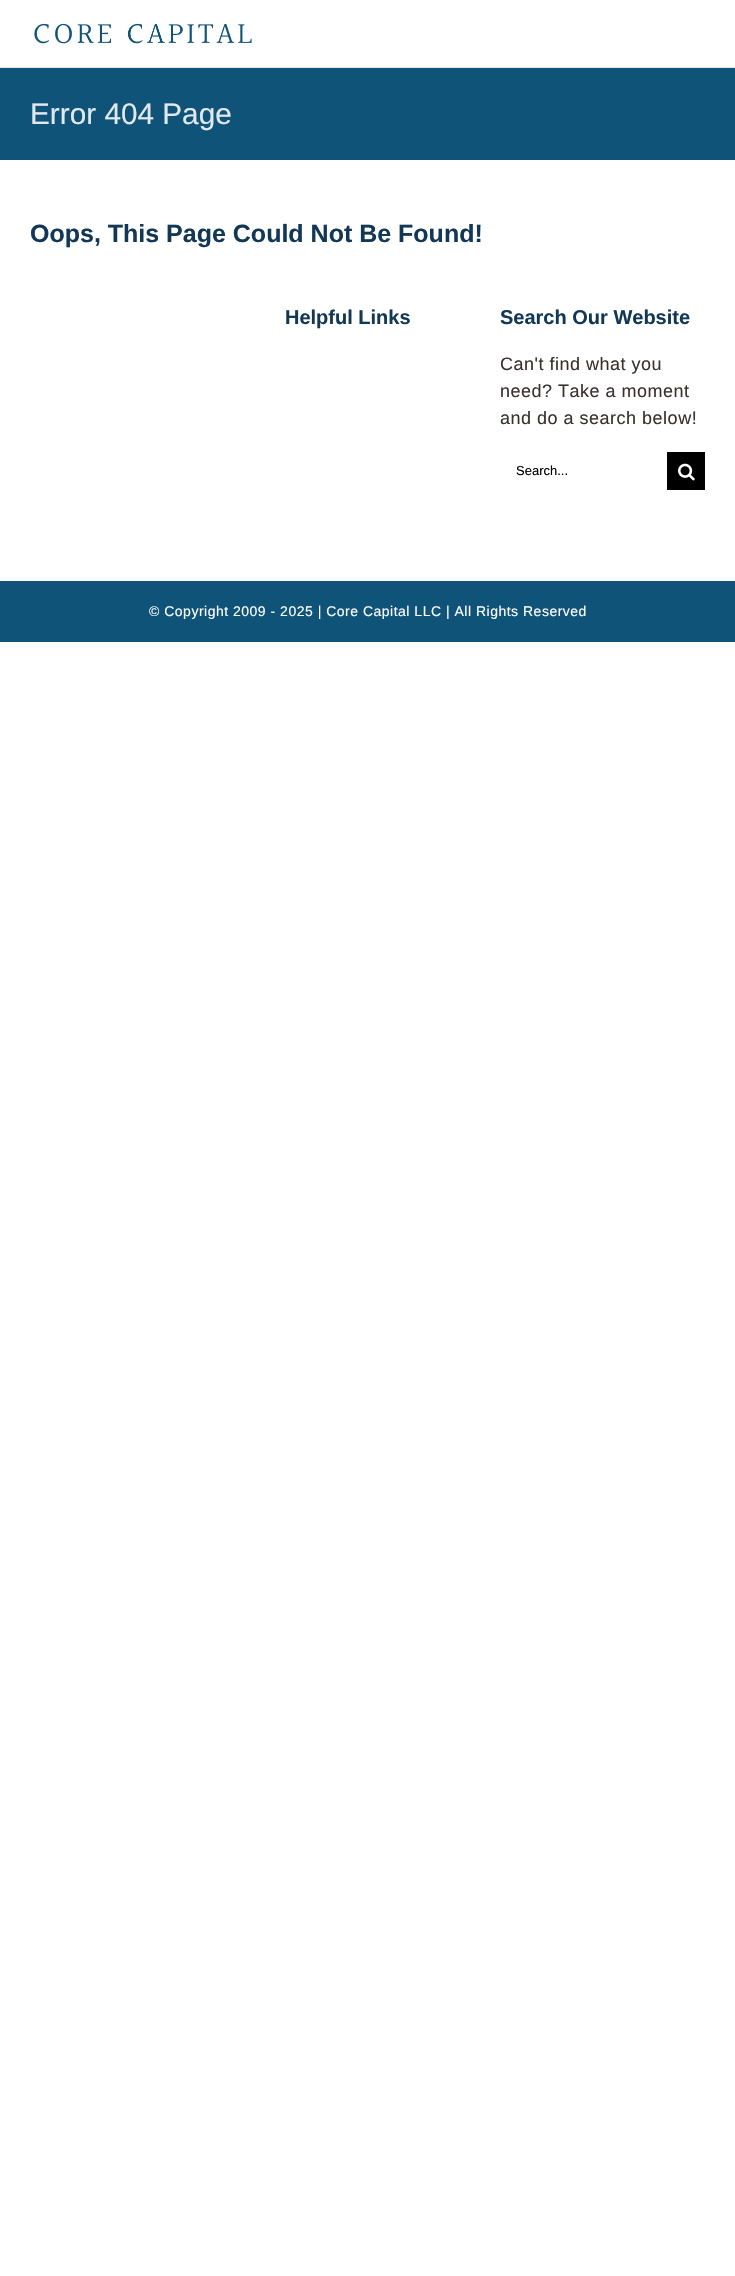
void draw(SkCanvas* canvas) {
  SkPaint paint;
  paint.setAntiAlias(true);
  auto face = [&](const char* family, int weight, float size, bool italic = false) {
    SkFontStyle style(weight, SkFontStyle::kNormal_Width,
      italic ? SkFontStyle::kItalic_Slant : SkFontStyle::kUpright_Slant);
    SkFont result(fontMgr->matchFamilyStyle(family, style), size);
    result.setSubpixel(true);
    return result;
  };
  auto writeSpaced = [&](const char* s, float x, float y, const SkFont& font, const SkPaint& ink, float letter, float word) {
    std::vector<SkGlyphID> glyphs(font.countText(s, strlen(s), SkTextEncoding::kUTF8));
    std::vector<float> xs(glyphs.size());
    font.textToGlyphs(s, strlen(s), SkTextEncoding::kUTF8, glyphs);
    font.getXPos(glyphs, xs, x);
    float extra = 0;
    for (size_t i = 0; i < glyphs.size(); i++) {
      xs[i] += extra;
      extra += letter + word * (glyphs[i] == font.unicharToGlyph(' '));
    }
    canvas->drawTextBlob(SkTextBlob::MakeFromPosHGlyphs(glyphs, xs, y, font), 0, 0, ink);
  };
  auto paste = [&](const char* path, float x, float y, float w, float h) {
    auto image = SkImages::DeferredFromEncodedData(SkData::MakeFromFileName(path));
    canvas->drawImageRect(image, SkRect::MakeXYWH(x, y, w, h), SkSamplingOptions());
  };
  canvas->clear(0xffffffff);
  paint.setColor(0xffebeaea);
  canvas->drawRect(SkRect::MakeXYWH(0, 67, 735, 1), paint);
  paste("img/1.png", 34, 23, 218, 21);
  paint.setColor(0xff105378);
  canvas->drawRect(SkRect::MakeXYWH(0, 68, 735, 92), paint);
  paint.setColor(0xff000000);
  canvas->drawRect(SkRect::MakeXYWH(667, 452, 38, 38), paint);
  paste("img/2.png", 678, 463, 17, 18);
  paint.setColor(0xff105378);
  canvas->drawRect(SkRect::MakeXYWH(0, 581, 735, 61), paint);
  auto f0 = face("Liberation Sans", 400, 29.75f);
  paint.setColor(0xffe1e9ee);
  canvas->drawString("Error 404 Page", 30, 124, f0, paint);
  auto f1 = face("Liberation Sans", 700, 25);
  paint.setColor(0xff123855);
  canvas->drawString("Oops, This Page Could Not Be Found!", 30, 242, f1, paint);
  auto f2 = face("Liberation Sans", 700, 20);
  canvas->drawString("Helpful Links", 285, 324, f2, paint);
  canvas->drawString("Search Our Website", 500, 324, f2, paint);
  auto f3 = face("Liberation Sans", 400, 18);
  paint.setColor(0xff3a3231);
  {
    const struct { const char* s; float x, y; } items[] = {
      {"Can't find what you", 500, 370},
      {"need? Take a moment", 500, 397},
      {"and do a search below!", 500, 424},
    };
    for (auto [s, x, y] : items) {
      writeSpaced(s, x, y, f3, paint, 0.5f, 0);
    }
  }
  auto f4 = face("Liberation Sans", 400, 13);
  paint.setColor(0xff000000);
  canvas->drawString("Search...", 516, 475, f4, paint);
  auto f5 = face("Liberation Sans", 400, 14);
  paint.setColor(0xffffffff);
  writeSpaced("© Copyright 2009 - 2025 | Core Capital LLC | All Rights Reserved", 149, 616, f5, paint, 0.5f, 0);
}
